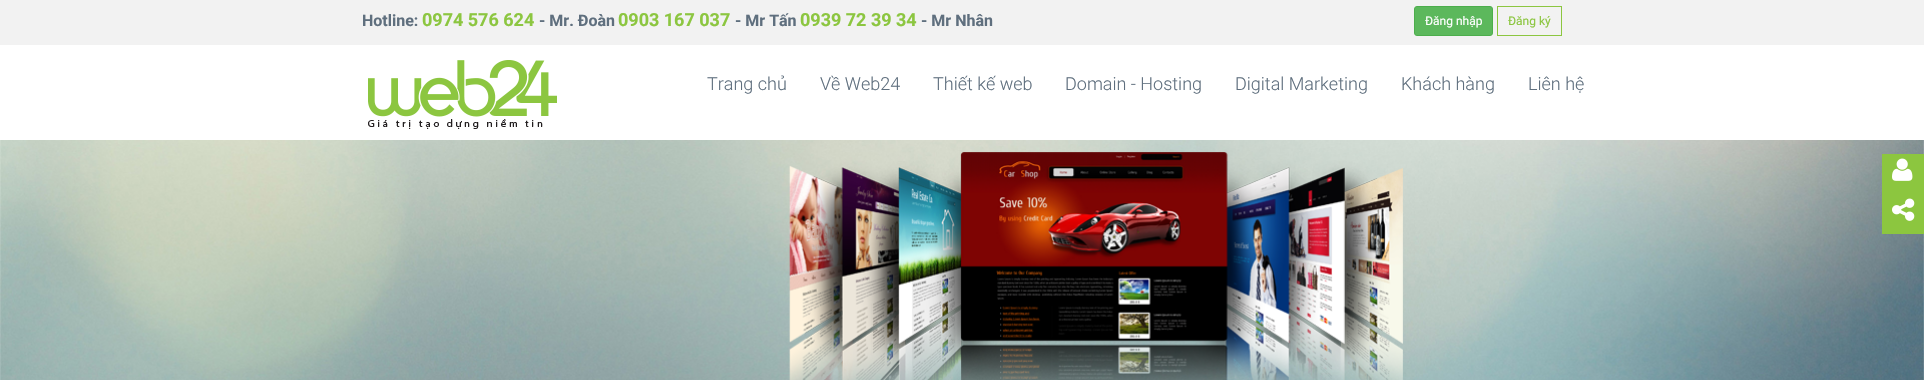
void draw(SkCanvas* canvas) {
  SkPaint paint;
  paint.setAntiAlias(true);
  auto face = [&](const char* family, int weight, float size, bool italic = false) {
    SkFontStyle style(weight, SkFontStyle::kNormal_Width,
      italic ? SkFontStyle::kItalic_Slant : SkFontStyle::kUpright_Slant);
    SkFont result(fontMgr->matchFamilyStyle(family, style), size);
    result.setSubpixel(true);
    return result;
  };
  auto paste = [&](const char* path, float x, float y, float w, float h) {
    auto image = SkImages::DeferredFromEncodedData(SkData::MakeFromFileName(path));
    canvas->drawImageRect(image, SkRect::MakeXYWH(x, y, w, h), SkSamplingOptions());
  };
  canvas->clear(0xffffffff);
  paint.setColor(0xfff2f2f2);
  canvas->drawRect(SkRect::MakeXYWH(0, 0, 1924, 45), paint);
  paint.setColor(0xff5cb85c);
  canvas->drawRoundRect(SkRect::MakeXYWH(1414.5f, 6.5f, 78, 29), 2.5f, 2.5f, paint);
  paint.setStroke(true);
  paint.setStrokeWidth(1);
  paint.setColor(0xff4cae4c);
  canvas->drawRoundRect(SkRect::MakeXYWH(1414.5f, 6.5f, 78, 29), 2.5f, 2.5f, paint);
  paint.setColor(0xff8cc640);
  canvas->drawRect(SkRect::MakeXYWH(1497.5f, 6.5f, 64, 29), paint);
  paste("img/1.png", 368, 60, 189, 69);
  paste("img/2.png", 0, 140, 1924, 240);
  paint.setStroke(false);
  paint.setColor(0xff8cc63f);
  canvas->drawRect(SkRect::MakeXYWH(1882, 154, 42, 80), paint);
  paste("img/3.png", 1892, 158, 21, 23);
  paste("img/4.png", 1892, 198, 23, 23);
  auto f0 = face("Roboto", 700, 16);
  paint.setColor(0xff5f6f7e);
  canvas->drawString("Hotline:", 362, 26, f0, paint);
  auto f1 = face("Roboto", 700, 18);
  paint.setColor(0xff8cc640);
  canvas->drawString("0974 576 624", 422, 26, f1, paint);
  paint.setColor(0xff5f6f7e);
  canvas->drawString("- Mr. Đoàn", 539, 26, f0, paint);
  paint.setColor(0xff8cc640);
  canvas->drawString("0903 167 037", 618, 26, f1, paint);
  paint.setColor(0xff5f6f7e);
  canvas->drawString("- Mr Tấn", 735, 26, f0, paint);
  paint.setColor(0xff8cc640);
  canvas->drawString("0939 72 39 34", 800, 26, f1, paint);
  paint.setColor(0xff5f6f7e);
  canvas->drawString("- Mr Nhân", 921, 26, f0, paint);
  auto f2 = face("Roboto", 400, 12);
  paint.setColor(0xffffffff);
  canvas->drawString("Đăng nhập", 1425, 25, f2, paint);
  paint.setColor(0xff8cc640);
  canvas->drawString("Đăng ký", 1508, 25, f2, paint);
  auto f3 = face("Roboto", 300, 18);
  paint.setColor(0xff5f6f7e);
  {
    const struct { const char* s; float x, y; } items[] = {
      {"Trang chủ", 707, 90},
      {"Về Web24", 820, 90},
      {"Thiết kế web", 933, 90},
      {"Domain - Hosting", 1065, 90},
      {"Digital Marketing", 1235, 90},
      {"Khách hàng", 1401, 90},
      {"Liên hệ", 1528, 90},
    };
    for (auto [s, x, y] : items) {
      canvas->drawString(s, x, y, f3, paint);
    }
  }
}
